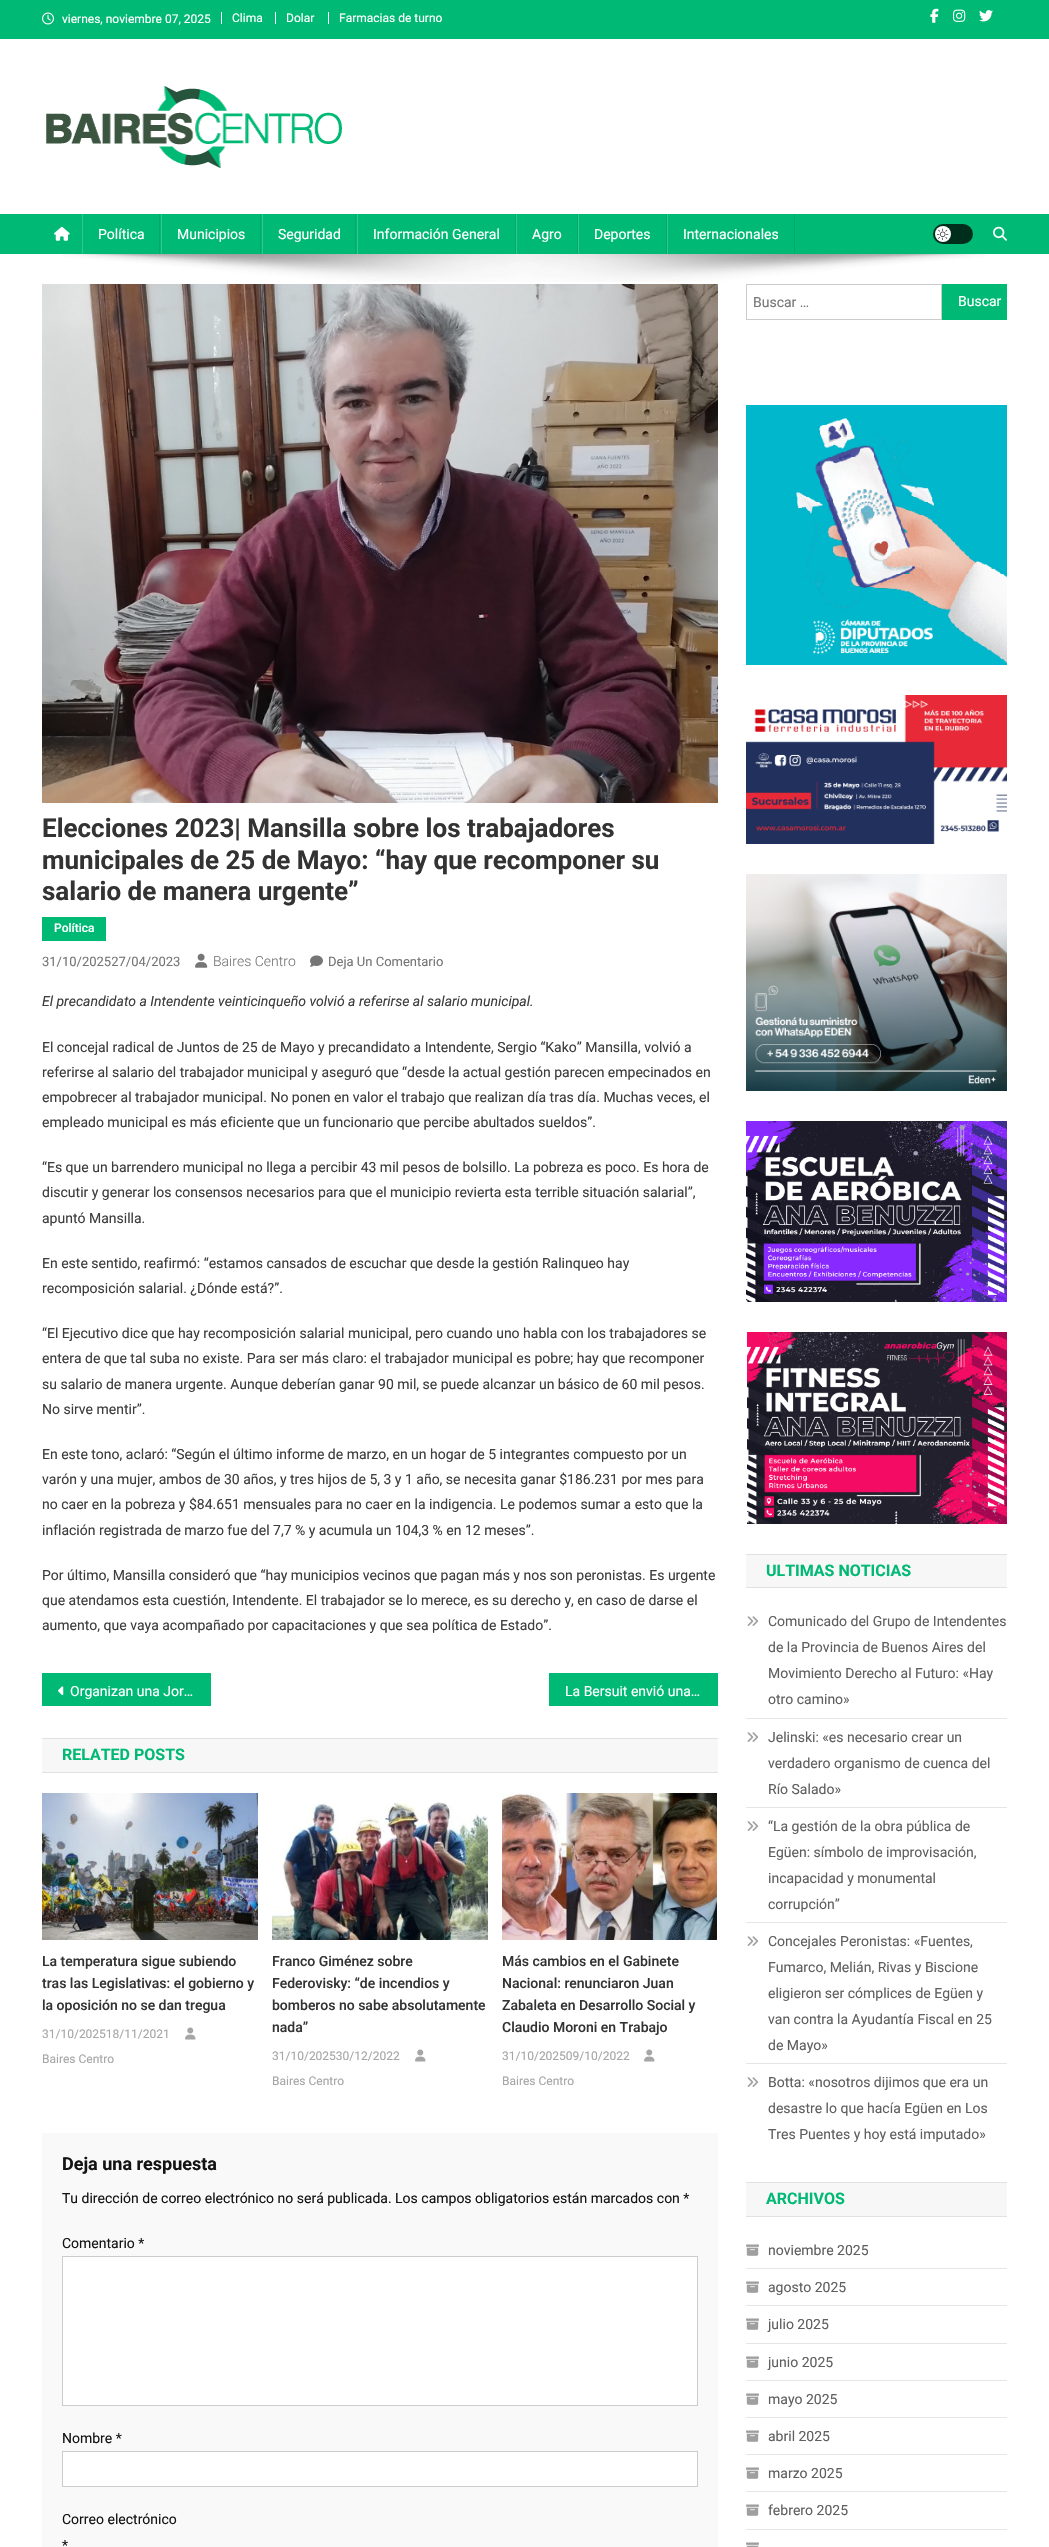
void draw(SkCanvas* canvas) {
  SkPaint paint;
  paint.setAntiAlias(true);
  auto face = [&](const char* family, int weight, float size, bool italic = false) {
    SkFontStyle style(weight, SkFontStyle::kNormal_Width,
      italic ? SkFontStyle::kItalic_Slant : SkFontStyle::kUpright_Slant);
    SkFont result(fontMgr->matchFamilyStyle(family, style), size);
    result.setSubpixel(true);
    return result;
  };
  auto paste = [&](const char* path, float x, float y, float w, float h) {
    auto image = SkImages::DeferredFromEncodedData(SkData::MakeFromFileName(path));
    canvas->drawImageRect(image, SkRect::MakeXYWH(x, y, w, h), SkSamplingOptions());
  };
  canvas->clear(0xffffffff);
  paint.setColor(0xff00b974);
  canvas->drawRect(SkRect::MakeXYWH(0, 0, 1049, 39), paint);
  paste("img/1.png", 42, 12, 12, 13);
  {
    const struct { float x, y, w, h; SkColor color; } items[] = {
      {221, 12, 1, 12, 0xffffffff},
      {275, 12, 1, 12, 0xffffffff},
      {328, 12, 1, 12, 0xffffffff},
    };
    for (auto [x, y, w, h, color] : items) {
      paint.setColor(color);
      canvas->drawRect(SkRect::MakeXYWH(x, y, w, h), paint);
    }
  }
  paste("img/2.png", 930, 8, 9, 15);
  paste("img/3.png", 953, 9, 13, 13);
  paste("img/4.png", 979, 10, 14, 12);
  paste("img/5.png", 46, 86, 296, 82);
  paint.setColor(0xff00b974);
  canvas->drawRect(SkRect::MakeXYWH(0, 214, 1049, 40), paint);
  paste("img/6.png", 54, 226, 16, 15);
  {
    const struct { float x, y, w, h; SkColor color; } items[] = {
      {159, 214, 1, 40, 0xff00aa6b},
      {82, 214, 1, 40, 0xff33c790},
      {260, 214, 1, 40, 0xff00aa6b},
      {161, 214, 1, 40, 0xff33c790},
      {355, 214, 1, 40, 0xff00aa6b},
      {262, 214, 1, 40, 0xff33c790},
      {515, 214, 1, 40, 0xff00aa6b},
      {357, 214, 1, 40, 0xff33c790},
      {577, 214, 1, 40, 0xff00aa6b},
      {516, 214, 1, 40, 0xff33c790},
      {666, 214, 1, 40, 0xff00aa6b},
      {578, 214, 1, 40, 0xff33c790},
      {794, 214, 1, 40, 0xff00aa6b},
      {667, 214, 1, 40, 0xff33c790},
    };
    for (auto [x, y, w, h, color] : items) {
      paint.setColor(color);
      canvas->drawRect(SkRect::MakeXYWH(x, y, w, h), paint);
    }
  }
  paint.setColor(0xff002e1d);
  canvas->drawRoundRect(SkRect::MakeXYWH(933, 224, 40, 20), 10, 10, paint);
  paint.setColor(0xffffffff);
  canvas->drawCircle(943, 234, 8, paint);
  paste("img/7.png", 937, 228, 12, 12);
  paste("img/8.png", 993, 226, 14, 15);
  paste("img/9.png", 62, 254, 925, 28);
  paste("img/10.png", 42, 284, 676, 519);
  paint.setColor(0xff00b974);
  canvas->drawRect(SkRect::MakeXYWH(42, 917, 64, 24), paint);
  paste("img/11.png", 195, 953, 13, 15);
  paste("img/12.png", 310, 955, 13, 12);
  canvas->drawRect(SkRect::MakeXYWH(42, 1673, 169, 33), paint);
  paste("img/13.png", 58, 1686, 6, 10);
  {
    const struct { float x, y, w, h; SkColor color; } items[] = {
      {549, 1673, 169, 33, 0xff00b974},
      {42, 1739, 676, 33, 0xfff7f7f7},
      {42, 1738, 676, 1, 0xffe1e1e1},
      {42, 1772, 676, 1, 0xffe1e1e1},
    };
    for (auto [x, y, w, h, color] : items) {
      paint.setColor(color);
      canvas->drawRect(SkRect::MakeXYWH(x, y, w, h), paint);
    }
  }
  paste("img/14.png", 42, 1793, 216, 147);
  paste("img/15.png", 185, 2027, 11, 13);
  paste("img/16.png", 272, 1802, 216, 138);
  paste("img/15.png", 415, 2049, 11, 13);
  paste("img/17.png", 502, 1793, 215, 147);
  paste("img/15.png", 644, 2049, 11, 13);
  paint.setColor(0xfff9f9f9);
  canvas->drawRect(SkRect::MakeXYWH(42, 2133, 676, 414), paint);
  paint.setColor(0xffffffff);
  canvas->drawRect(SkRect::MakeXYWH(62.5f, 2256.5f, 635, 149), paint);
  paint.setStroke(true);
  paint.setStrokeWidth(1);
  paint.setColor(0xffcccccc);
  canvas->drawRect(SkRect::MakeXYWH(62.5f, 2256.5f, 635, 149), paint);
  paint.setStroke(false);
  paint.setColor(0xffffffff);
  canvas->drawRect(SkRect::MakeXYWH(62.5f, 2451.5f, 635, 35), paint);
  paint.setStroke(true);
  paint.setColor(0xffcccccc);
  canvas->drawRect(SkRect::MakeXYWH(62.5f, 2451.5f, 635, 35), paint);
  canvas->drawRect(SkRect::MakeXYWH(746.5f, 284.5f, 195, 35), paint);
  paint.setStroke(false);
  paint.setColor(0xff00b974);
  canvas->drawRect(SkRect::MakeXYWH(942, 284, 65, 36), paint);
  paste("img/18.png", 746, 405, 261, 260);
  paste("img/19.png", 746, 695, 261, 149);
  paste("img/20.png", 746, 874, 261, 217);
  paste("img/21.png", 746, 1121, 261, 181);
  paste("img/22.png", 747, 1332, 260, 192);
  {
    const struct { float x, y, w, h; SkColor color; } items[] = {
      {746, 1555, 261, 32, 0xfff7f7f7},
      {746, 1554, 261, 1, 0xffe1e1e1},
      {746, 1587, 261, 1, 0xffe1e1e1},
      {746, 1718, 261, 1, 0xffe6e6e6},
    };
    for (auto [x, y, w, h, color] : items) {
      paint.setColor(color);
      canvas->drawRect(SkRect::MakeXYWH(x, y, w, h), paint);
    }
  }
  paste("img/23.png", 747, 1616, 12, 10);
  canvas->drawRect(SkRect::MakeXYWH(746, 1807, 261, 1), paint);
  paste("img/23.png", 747, 1732, 12, 10);
  canvas->drawRect(SkRect::MakeXYWH(746, 1922, 261, 1), paint);
  paste("img/23.png", 747, 1821, 12, 10);
  canvas->drawRect(SkRect::MakeXYWH(746, 2063, 261, 1), paint);
  paste("img/23.png", 747, 1936, 12, 10);
  paste("img/23.png", 747, 2077, 12, 10);
  {
    const struct { float x, y, w, h; SkColor color; } items[] = {
      {746, 2183, 261, 33, 0xfff7f7f7},
      {746, 2182, 261, 1, 0xffe1e1e1},
      {746, 2216, 261, 1, 0xffe1e1e1},
      {746, 2268, 261, 1, 0xffe6e6e6},
    };
    for (auto [x, y, w, h, color] : items) {
      paint.setColor(color);
      canvas->drawRect(SkRect::MakeXYWH(x, y, w, h), paint);
    }
  }
  paste("img/24.png", 746, 2244, 13, 12);
  canvas->drawRect(SkRect::MakeXYWH(746, 2305, 261, 1), paint);
  paste("img/24.png", 746, 2281, 13, 12);
  canvas->drawRect(SkRect::MakeXYWH(746, 2343, 261, 1), paint);
  paste("img/24.png", 746, 2318, 13, 12);
  canvas->drawRect(SkRect::MakeXYWH(746, 2380, 261, 1), paint);
  paste("img/24.png", 746, 2356, 13, 12);
  canvas->drawRect(SkRect::MakeXYWH(746, 2417, 261, 1), paint);
  paste("img/24.png", 746, 2393, 13, 12);
  canvas->drawRect(SkRect::MakeXYWH(746, 2454, 261, 1), paint);
  paste("img/24.png", 746, 2430, 13, 12);
  canvas->drawRect(SkRect::MakeXYWH(746, 2491, 261, 1), paint);
  paste("img/24.png", 746, 2467, 13, 12);
  canvas->drawRect(SkRect::MakeXYWH(746, 2529, 261, 1), paint);
  paste("img/24.png", 746, 2504, 13, 12);
  paste("img/25.png", 746, 2542, 13, 5);
  auto f0 = face("Roboto", 400, 12);
  paint.setColor(0xffffffff);
  {
    const struct { const char* s; float x, y; } items[] = {
      {"viernes, noviembre 07, 2025", 62, 23},
      {"Clima", 232, 22},
      {"Dolar", 286, 22},
      {"Farmacias de turno", 339, 22},
    };
    for (auto [s, x, y] : items) {
      canvas->drawString(s, x, y, f0, paint);
    }
  }
  auto f1 = face("Roboto", 400, 14);
  {
    const struct { const char* s; float x, y; } items[] = {
      {"Política", 98, 239},
      {"Municipios", 177, 239},
      {"Seguridad", 278, 239},
      {"Información General", 373, 239},
      {"Agro", 532, 239},
      {"Deportes", 594, 239},
      {"Internacionales", 683, 239},
    };
    for (auto [s, x, y] : items) {
      canvas->drawString(s, x, y, f1, paint);
    }
  }
  auto f2 = face("Roboto", 700, 26);
  paint.setColor(0xff333333);
  {
    const struct { const char* s; float x, y; } items[] = {
      {"Elecciones 2023| Mansilla sobre los trabajadores", 42, 837},
      {"municipales de 25 de Mayo: “hay que recomponer su", 42, 869},
      {"salario de manera urgente”", 42, 900},
    };
    for (auto [s, x, y] : items) {
      canvas->drawString(s, x, y, f2, paint);
    }
  }
  auto f3 = face("Roboto", 500, 12);
  paint.setColor(0xffffffff);
  canvas->drawString("Política", 54, 932, f3, paint);
  auto f4 = face("Roboto", 400, 13);
  paint.setColor(0xff767676);
  canvas->drawString("31/10/202527/04/2023", 42, 966, f4, paint);
  auto f5 = face("Roboto", 300, 14);
  canvas->drawString("Baires Centro", 213, 966, f5, paint);
  canvas->drawString("Deja Un Comentario", 328, 966, f4, paint);
  auto f6 = face("Roboto", 400, 14, true);
  paint.setColor(0xff3d3d3d);
  canvas->drawString("El precandidato a Intendente veinticinqueño volvió a referirse al salario municipal.", 42, 1006, f6, paint);
  {
    const struct { const char* s; float x, y; } items[] = {
      {"El concejal radical de Juntos de 25 de Mayo y precandidato a Intendente, Sergio “Kako” Mansilla, volvió a", 42, 1052},
      {"referirse al salario del trabajador municipal y aseguró que “desde la actual gestión parecen empecinados en", 42, 1077},
      {"empobrecer al trabajador municipal. No ponen en valor el trabajo que realizan día tras día. Muchas veces, el", 42, 1102},
      {"empleado municipal es más eficiente que un funcionario que percibe abultados sueldos”.", 42, 1127},
      {"“Es que un barrendero municipal no llega a percibir 43 mil pesos de bolsillo. La pobreza es poco. Es hora de", 42, 1172},
      {"discutir y generar los consensos necesarios para que el municipio revierta esta terrible situación salarial”,", 42, 1197},
      {"apuntó Mansilla.", 42, 1223},
      {"En este sentido, reafirmó: “estamos cansados de escuchar que desde la gestión Ralinqueo hay", 42, 1268},
      {"recomposición salarial. ¿Dónde está?”.", 42, 1293},
      {"“El Ejecutivo dice que hay recomposición salarial municipal, pero cuando uno habla con los trabajadores se", 42, 1338},
      {"entera de que tal suba no existe. Para ser más claro: el trabajador municipal es pobre; hay que recomponer", 42, 1363},
      {"su salario de manera urgente. Aunque deberían ganar 90 mil, se puede alcanzar un básico de 60 mil pesos.", 42, 1389},
      {"No sirve mentir”.", 42, 1414},
      {"En este tono, aclaró: “Según el último informe de marzo, en un hogar de 5 integrantes compuesto por un", 42, 1459},
      {"varón y una mujer, ambos de 30 años, y tres hijos de 5, 3 y 1 año, se necesita ganar $186.231 por mes para", 42, 1484},
      {"no caer en la pobreza y $84.651 mensuales para no caer en la indigencia. Le podemos sumar a esto que la", 42, 1509},
      {"inflación registrada de marzo fue del 7,7 % y acumula un 104,3 % en 12 meses”.", 42, 1535},
      {"Por último, Mansilla consideró que “hay municipios vecinos que pagan más y nos son peronistas. Es urgente", 42, 1580},
      {"que atendamos esta cuestión, Intendente. El trabajador se lo merece, es su derecho y, en caso de darse el", 42, 1605},
      {"aumento, que vaya acompañado por capacitaciones y que sea política de Estado”.", 42, 1630},
    };
    for (auto [s, x, y] : items) {
      canvas->drawString(s, x, y, f1, paint);
    }
  }
  paint.setColor(0xffffffff);
  canvas->drawString("Organizan una Jor…", 70, 1696, f1, paint);
  canvas->drawString("La Bersuit envió una…", 565, 1696, f1, paint);
  auto f7 = face("Roboto", 700, 16);
  paint.setColor(0xff00b974);
  canvas->drawString("RELATED POSTS", 62, 1760, f7, paint);
  auto f8 = face("Roboto", 500, 14);
  paint.setColor(0xff333333);
  {
    const struct { const char* s; float x, y; } items[] = {
      {"La temperatura sigue subiendo", 42, 1966},
      {"tras las Legislativas: el gobierno y", 42, 1988},
      {"la oposición no se dan tregua", 42, 2010},
    };
    for (auto [s, x, y] : items) {
      canvas->drawString(s, x, y, f8, paint);
    }
  }
  paint.setColor(0xffa6a6a6);
  canvas->drawString("31/10/202518/11/2021", 42, 2038, f0, paint);
  canvas->drawString("Baires Centro", 42, 2063, f0, paint);
  paint.setColor(0xff333333);
  {
    const struct { const char* s; float x, y; } items[] = {
      {"Franco Giménez sobre", 272, 1966},
      {"Federovisky: “de incendios y", 272, 1988},
      {"bomberos no sabe absolutamente", 272, 2010},
      {"nada”", 272, 2032},
    };
    for (auto [s, x, y] : items) {
      canvas->drawString(s, x, y, f8, paint);
    }
  }
  paint.setColor(0xffa6a6a6);
  canvas->drawString("31/10/202530/12/2022", 272, 2060, f0, paint);
  canvas->drawString("Baires Centro", 272, 2085, f0, paint);
  paint.setColor(0xff333333);
  {
    const struct { const char* s; float x, y; } items[] = {
      {"Más cambios en el Gabinete", 502, 1966},
      {"Nacional: renunciaron Juan", 502, 1988},
      {"Zabaleta en Desarrollo Social y", 502, 2010},
      {"Claudio Moroni en Trabajo", 502, 2032},
    };
    for (auto [s, x, y] : items) {
      canvas->drawString(s, x, y, f8, paint);
    }
  }
  paint.setColor(0xffa6a6a6);
  canvas->drawString("31/10/202509/10/2022", 502, 2060, f0, paint);
  canvas->drawString("Baires Centro", 502, 2085, f0, paint);
  auto f9 = face("Roboto", 700, 18);
  paint.setColor(0xff141414);
  canvas->drawString("Deja una respuesta", 62, 2170, f9, paint);
  {
    const struct { const char* s; float x, y; } items[] = {
      {"Tu dirección de correo electrónico no será publicada. Los campos obligatorios están marcados con *", 62, 2203},
      {"Comentario *", 62, 2248},
      {"Nombre *", 62, 2443},
      {"Correo electrónico", 62, 2524},
      {"*", 62, 2550},
    };
    for (auto [s, x, y] : items) {
      canvas->drawString(s, x, y, f1, paint);
    }
  }
  paint.setColor(0xff767676);
  canvas->drawString("Buscar …", 753, 307, f1, paint);
  paint.setColor(0xffffffff);
  canvas->drawString("Buscar", 958, 306, f1, paint);
  paint.setColor(0xff00b974);
  canvas->drawString("ULTIMAS NOTICIAS", 766, 1576, f7, paint);
  paint.setColor(0xff5f5f5f);
  {
    const struct { const char* s; float x, y; } items[] = {
      {"Comunicado del Grupo de Intendentes", 768, 1626},
      {"de la Provincia de Buenos Aires del", 768, 1652},
      {"Movimiento Derecho al Futuro: «Hay", 768, 1678},
      {"otro camino»", 768, 1704},
      {"Jelinski: «es necesario crear un", 768, 1742},
      {"verdadero organismo de cuenca del", 768, 1768},
      {"Río Salado»", 768, 1794},
      {"“La gestión de la obra pública de", 768, 1831},
      {"Egüen: símbolo de improvisación,", 768, 1857},
      {"incapacidad y monumental", 768, 1883},
      {"corrupción”", 768, 1909},
      {"Concejales Peronistas: «Fuentes,", 768, 1946},
      {"Fumarco, Melián, Rivas y Biscione", 768, 1972},
      {"eligieron ser cómplices de Egüen y", 768, 1998},
      {"van contra la Ayudantía Fiscal en 25", 768, 2024},
      {"de Mayo»", 768, 2050},
      {"Botta: «nosotros dijimos que era un", 768, 2087},
      {"desastre lo que hacía Egüen en Los", 768, 2113},
      {"Tres Puentes y hoy está imputado»", 768, 2139},
    };
    for (auto [s, x, y] : items) {
      canvas->drawString(s, x, y, f1, paint);
    }
  }
  paint.setColor(0xff00b974);
  canvas->drawString("ARCHIVOS", 766, 2204, f7, paint);
  paint.setColor(0xff5f5f5f);
  {
    const struct { const char* s; float x, y; } items[] = {
      {"noviembre 2025", 768, 2255},
      {"agosto 2025", 768, 2292},
      {"julio 2025", 768, 2329},
      {"junio 2025", 768, 2367},
      {"mayo 2025", 768, 2404},
      {"abril 2025", 768, 2441},
      {"marzo 2025", 768, 2478},
      {"febrero 2025", 768, 2515},
    };
    for (auto [s, x, y] : items) {
      canvas->drawString(s, x, y, f1, paint);
    }
  }
}
